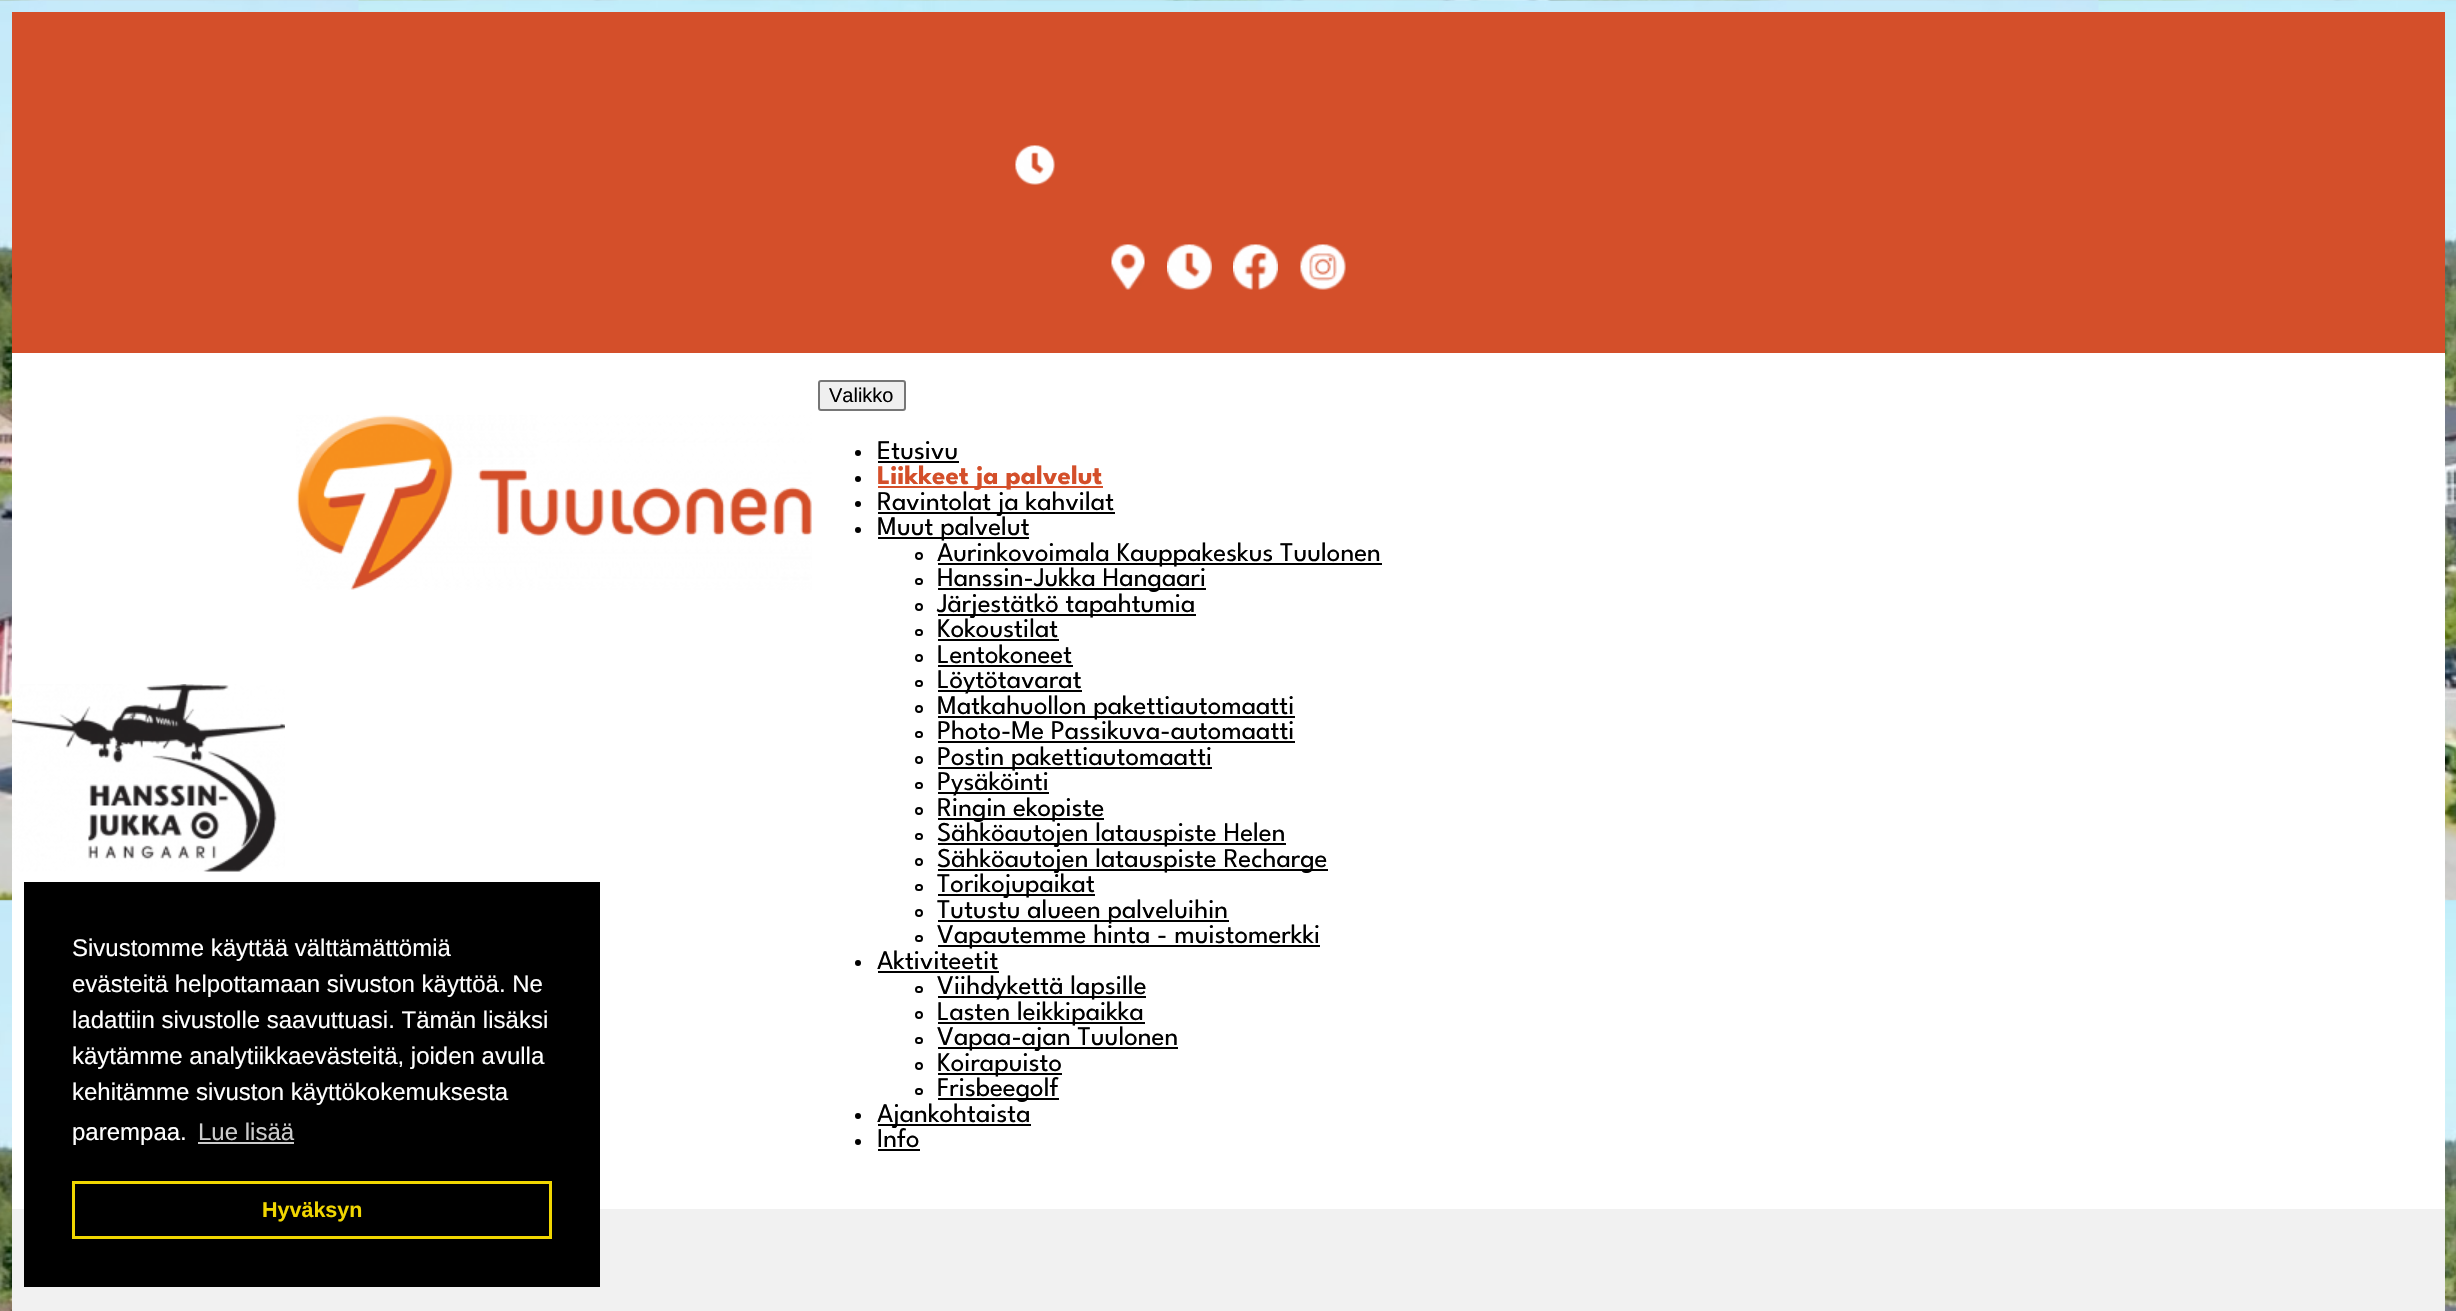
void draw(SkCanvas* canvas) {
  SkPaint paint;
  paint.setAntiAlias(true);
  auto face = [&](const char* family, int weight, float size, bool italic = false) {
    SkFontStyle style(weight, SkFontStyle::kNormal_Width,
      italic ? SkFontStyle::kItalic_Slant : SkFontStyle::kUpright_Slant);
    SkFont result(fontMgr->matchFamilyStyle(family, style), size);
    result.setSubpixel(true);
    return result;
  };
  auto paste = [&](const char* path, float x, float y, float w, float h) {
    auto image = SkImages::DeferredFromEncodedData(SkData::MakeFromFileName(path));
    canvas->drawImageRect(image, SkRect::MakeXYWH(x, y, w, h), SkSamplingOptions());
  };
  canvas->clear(0xffffffff);
  paste("img/1.png", 0, 0, 2456, 1311);
  {
    const struct { float x, y, w, h; SkColor color; } items[] = {
      {12, 353, 2433, 856, 0xffffffff},
      {12, 1209, 2433, 102, 0xfff1f1f1},
      {24, 882, 576, 405, 0xff000000},
      {198, 1142, 96, 2, 0xffcccccc},
    };
    for (auto [x, y, w, h, color] : items) {
      paint.setColor(color);
      canvas->drawRect(SkRect::MakeXYWH(x, y, w, h), paint);
    }
  }
  paint.setStroke(true);
  paint.setStrokeWidth(3);
  paint.setColor(0xfff1d600);
  canvas->drawRect(SkRect::MakeXYWH(73.5f, 1182.5f, 477, 55), paint);
  paint.setStroke(false);
  paint.setColor(0xffd44f2a);
  canvas->drawRect(SkRect::MakeXYWH(12, 12, 2433, 341), paint);
  paste("img/2.png", 1015, 145, 40, 40);
  paste("img/3.png", 1111, 244, 34, 46);
  paste("img/4.png", 1167, 244, 45, 46);
  paste("img/5.png", 1233, 244, 45, 46);
  paste("img/6.png", 1300, 244, 46, 46);
  paste("img/7.png", 296, 415, 516, 175);
  paint.setColor(0xffefefef);
  canvas->drawRoundRect(SkRect::MakeXYWH(819, 381, 86, 29), 2, 2, paint);
  paint.setStroke(true);
  paint.setStrokeWidth(2);
  paint.setColor(0xff767676);
  canvas->drawRoundRect(SkRect::MakeXYWH(819, 381, 86, 29), 2, 2, paint);
  paint.setStroke(false);
  paint.setColor(0xff000000);
  canvas->drawCircle(858, 453, 3, paint);
  canvas->drawRect(SkRect::MakeXYWH(878, 461, 81, 2), paint);
  canvas->drawCircle(858, 479, 3, paint);
  paint.setColor(0xffd44f2a);
  canvas->drawRect(SkRect::MakeXYWH(878, 486, 225, 2), paint);
  paint.setColor(0xff000000);
  canvas->drawCircle(858, 504, 3, paint);
  canvas->drawRect(SkRect::MakeXYWH(878, 512, 237, 2), paint);
  canvas->drawCircle(858, 530, 3, paint);
  canvas->drawRect(SkRect::MakeXYWH(878, 537, 151, 2), paint);
  paint.setStroke(true);
  canvas->drawCircle(919, 556, 3, paint);
  paint.setStroke(false);
  canvas->drawRect(SkRect::MakeXYWH(938, 563, 444, 2), paint);
  paint.setStroke(true);
  canvas->drawRoundRect(SkRect::MakeXYWH(916, 579, 6, 5), 2.5f, 2.5f, paint);
  paint.setStroke(false);
  canvas->drawRect(SkRect::MakeXYWH(938, 588, 268, 2), paint);
  paint.setStroke(true);
  canvas->drawCircle(919, 607, 3, paint);
  paint.setStroke(false);
  canvas->drawRect(SkRect::MakeXYWH(938, 614, 258, 2), paint);
  paint.setStroke(true);
  canvas->drawRoundRect(SkRect::MakeXYWH(916, 630, 6, 5), 2.5f, 2.5f, paint);
  paint.setStroke(false);
  canvas->drawRect(SkRect::MakeXYWH(938, 639, 121, 2), paint);
  paint.setStroke(true);
  canvas->drawCircle(919, 658, 3, paint);
  paint.setStroke(false);
  canvas->drawRect(SkRect::MakeXYWH(938, 665, 135, 2), paint);
  paint.setStroke(true);
  canvas->drawRoundRect(SkRect::MakeXYWH(916, 681, 6, 5), 2.5f, 2.5f, paint);
  paint.setStroke(false);
  canvas->drawRect(SkRect::MakeXYWH(938, 690, 144, 2), paint);
  paint.setStroke(true);
  canvas->drawCircle(919, 709, 3, paint);
  paint.setStroke(false);
  canvas->drawRect(SkRect::MakeXYWH(938, 716, 357, 2), paint);
  paint.setStroke(true);
  canvas->drawRoundRect(SkRect::MakeXYWH(916, 732, 6, 5), 2.5f, 2.5f, paint);
  paint.setStroke(false);
  canvas->drawRect(SkRect::MakeXYWH(938, 741, 357, 2), paint);
  paint.setStroke(true);
  canvas->drawCircle(919, 760, 3, paint);
  paint.setStroke(false);
  canvas->drawRect(SkRect::MakeXYWH(938, 767, 274, 2), paint);
  paint.setStroke(true);
  canvas->drawRoundRect(SkRect::MakeXYWH(916, 783, 6, 5), 2.5f, 2.5f, paint);
  paint.setStroke(false);
  canvas->drawRect(SkRect::MakeXYWH(938, 792, 111, 2), paint);
  paint.setStroke(true);
  canvas->drawCircle(919, 811, 3, paint);
  paint.setStroke(false);
  canvas->drawRect(SkRect::MakeXYWH(938, 818, 166, 2), paint);
  paint.setStroke(true);
  canvas->drawRoundRect(SkRect::MakeXYWH(916, 834, 6, 5), 2.5f, 2.5f, paint);
  paint.setStroke(false);
  canvas->drawRect(SkRect::MakeXYWH(938, 843, 348, 2), paint);
  paint.setStroke(true);
  canvas->drawCircle(919, 862, 3, paint);
  paint.setStroke(false);
  canvas->drawRect(SkRect::MakeXYWH(938, 869, 390, 2), paint);
  paint.setStroke(true);
  canvas->drawRoundRect(SkRect::MakeXYWH(916, 885, 6, 5), 2.5f, 2.5f, paint);
  paint.setStroke(false);
  canvas->drawRect(SkRect::MakeXYWH(938, 894, 157, 2), paint);
  paint.setStroke(true);
  canvas->drawCircle(919, 913, 3, paint);
  paint.setStroke(false);
  canvas->drawRect(SkRect::MakeXYWH(938, 920, 291, 2), paint);
  paint.setStroke(true);
  canvas->drawRoundRect(SkRect::MakeXYWH(916, 936, 6, 5), 2.5f, 2.5f, paint);
  paint.setStroke(false);
  canvas->drawRect(SkRect::MakeXYWH(938, 945, 382, 2), paint);
  canvas->drawCircle(858, 963, 3, paint);
  canvas->drawRect(SkRect::MakeXYWH(878, 971, 121, 2), paint);
  paint.setStroke(true);
  canvas->drawRoundRect(SkRect::MakeXYWH(916, 987, 6, 5), 2.5f, 2.5f, paint);
  paint.setStroke(false);
  canvas->drawRect(SkRect::MakeXYWH(938, 996, 208, 2), paint);
  paint.setStroke(true);
  canvas->drawCircle(919, 1015, 3, paint);
  paint.setStroke(false);
  canvas->drawRect(SkRect::MakeXYWH(938, 1022, 207, 2), paint);
  paint.setStroke(true);
  canvas->drawRoundRect(SkRect::MakeXYWH(916, 1038, 6, 5), 2.5f, 2.5f, paint);
  paint.setStroke(false);
  canvas->drawRect(SkRect::MakeXYWH(938, 1047, 240, 2), paint);
  paint.setStroke(true);
  canvas->drawCircle(919, 1066, 3, paint);
  paint.setStroke(false);
  canvas->drawRect(SkRect::MakeXYWH(938, 1073, 124, 2), paint);
  paint.setStroke(true);
  canvas->drawRoundRect(SkRect::MakeXYWH(916, 1089, 6, 5), 2.5f, 2.5f, paint);
  paint.setStroke(false);
  canvas->drawRect(SkRect::MakeXYWH(938, 1098, 121, 2), paint);
  canvas->drawCircle(858, 1116, 3, paint);
  canvas->drawRect(SkRect::MakeXYWH(878, 1124, 153, 2), paint);
  canvas->drawCircle(858, 1142, 3, paint);
  canvas->drawRect(SkRect::MakeXYWH(878, 1149, 42, 2), paint);
  paste("img/8.png", 12, 684, 273, 188);
  auto f0 = face("Liberation Sans", 400, 24);
  paint.setColor(0xffffffff);
  {
    const struct { const char* s; float x, y; } items[] = {
      {"Sivustomme käyttää välttämättömiä", 72, 956},
      {"evästeitä helpottamaan sivuston käyttöä. Ne", 72, 992},
      {"ladattiin sivustolle saavuttuasi. Tämän lisäksi", 72, 1028},
      {"käytämme analytiikkaevästeitä, joiden avulla", 72, 1064},
      {"kehitämme sivuston käyttökokemuksesta", 72, 1100},
      {"parempaa.", 72, 1140},
    };
    for (auto [s, x, y] : items) {
      canvas->drawString(s, x, y, f0, paint);
    }
  }
  paint.setColor(0xffcccccc);
  canvas->drawString("Lue lisää", 198, 1140, f0, paint);
  auto f1 = face("Liberation Sans", 700, 21.5f);
  paint.setColor(0xfff1d600);
  canvas->drawString("Hyväksyn", 262, 1217, f1, paint);
  auto f2 = face("Liberation Sans", 400, 20);
  paint.setColor(0xff000000);
  canvas->drawString("Valikko", 829, 402, f2, paint);
  auto f3 = face("League Spartan", 400, 27);
  canvas->drawString("Etusivu", 877, 459, f3, paint);
  auto f4 = face("League Spartan", 700, 27);
  paint.setColor(0xffd44f2a);
  canvas->drawString("Liikkeet ja palvelut", 877, 484, f4, paint);
  paint.setColor(0xff000000);
  {
    const struct { const char* s; float x, y; } items[] = {
      {"Ravintolat ja kahvilat", 877, 510},
      {"Muut palvelut", 877, 535},
      {"Aurinkovoimala Kauppakeskus Tuulonen", 937, 561},
      {"Hanssin-Jukka Hangaari", 937, 586},
      {"Järjestätkö tapahtumia", 937, 612},
      {"Kokoustilat", 937, 637},
      {"Lentokoneet", 937, 663},
      {"Löytötavarat", 937, 688},
      {"Matkahuollon pakettiautomaatti", 937, 714},
      {"Photo-Me Passikuva-automaatti", 937, 739},
      {"Postin pakettiautomaatti", 937, 765},
      {"Pysäköinti", 937, 790},
      {"Ringin ekopiste", 937, 816},
      {"Sähköautojen latauspiste Helen", 937, 841},
      {"Sähköautojen latauspiste Recharge", 937, 867},
      {"Torikojupaikat", 937, 892},
      {"Tutustu alueen palveluihin", 937, 918},
      {"Vapautemme hinta - muistomerkki", 937, 943},
      {"Aktiviteetit", 877, 969},
      {"Viihdykettä lapsille", 937, 994},
      {"Lasten leikkipaikka", 937, 1020},
      {"Vapaa-ajan Tuulonen", 937, 1045},
      {"Koirapuisto", 937, 1071},
      {"Frisbeegolf", 937, 1096},
      {"Ajankohtaista", 877, 1122},
      {"Info", 877, 1147},
    };
    for (auto [s, x, y] : items) {
      canvas->drawString(s, x, y, f3, paint);
    }
  }
}
